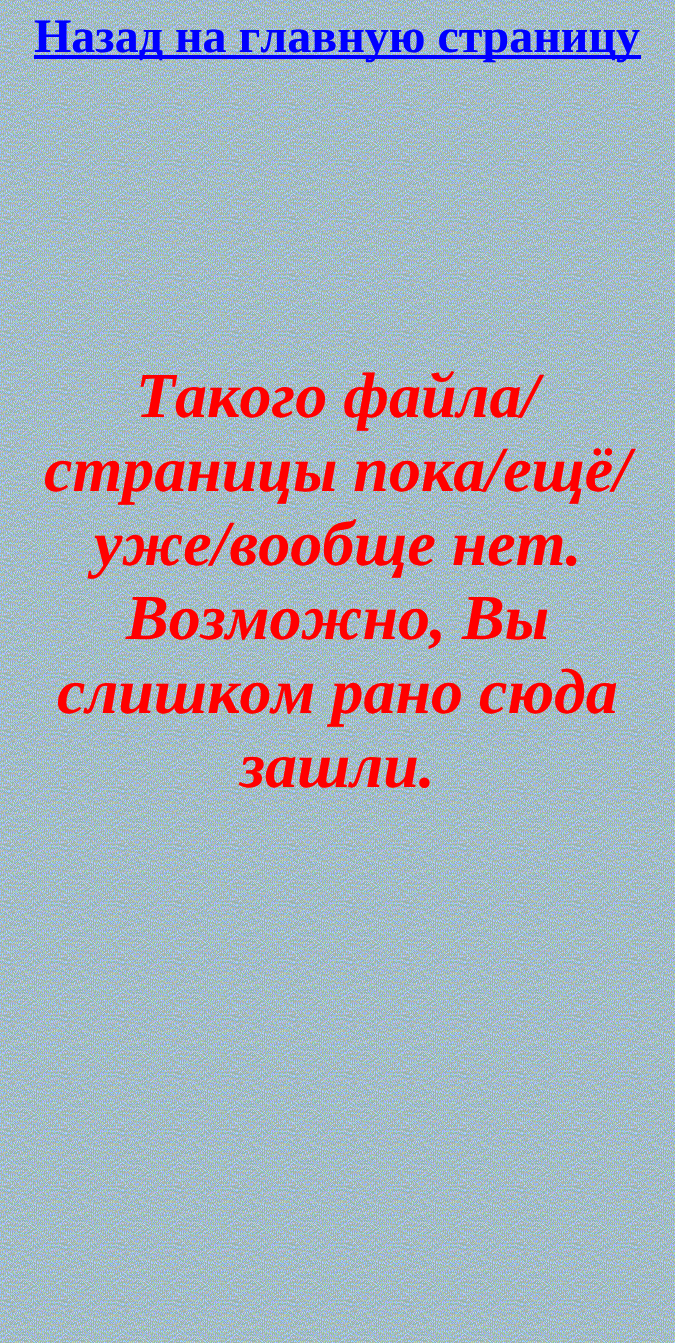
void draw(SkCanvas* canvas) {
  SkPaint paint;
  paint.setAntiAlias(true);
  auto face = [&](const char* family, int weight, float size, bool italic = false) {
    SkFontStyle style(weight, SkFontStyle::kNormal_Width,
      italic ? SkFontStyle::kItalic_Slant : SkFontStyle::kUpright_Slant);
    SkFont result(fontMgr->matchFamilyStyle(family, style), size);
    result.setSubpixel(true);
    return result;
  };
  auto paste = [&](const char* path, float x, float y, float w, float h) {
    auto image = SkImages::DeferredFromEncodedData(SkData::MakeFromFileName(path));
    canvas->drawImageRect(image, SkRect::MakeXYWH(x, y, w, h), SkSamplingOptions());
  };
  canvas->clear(0xffffffff);
  paste("img/1.png", 0, 0, 675, 1343);
  paint.setColor(0xff0000ff);
  canvas->drawRect(SkRect::MakeXYWH(34, 55, 607, 4), paint);
  auto f0 = face("Liberation Serif", 700, 48);
  canvas->drawString("Назад на главную страницу", 34, 52, f0, paint);
  auto f1 = face("Liberation Serif", 700, 64, true);
  paint.setColor(0xffff0000);
  {
    const struct { const char* s; float x, y; } items[] = {
      {"Такого файла/", 136, 417},
      {"страницы пока/ещё/", 44, 491},
      {"уже/вообще нет.", 94, 565},
      {"Возможно, Вы", 126, 639},
      {"слишком рано сюда", 57, 713},
      {"зашли.", 240, 787},
    };
    for (auto [s, x, y] : items) {
      canvas->drawString(s, x, y, f1, paint);
    }
  }
}
